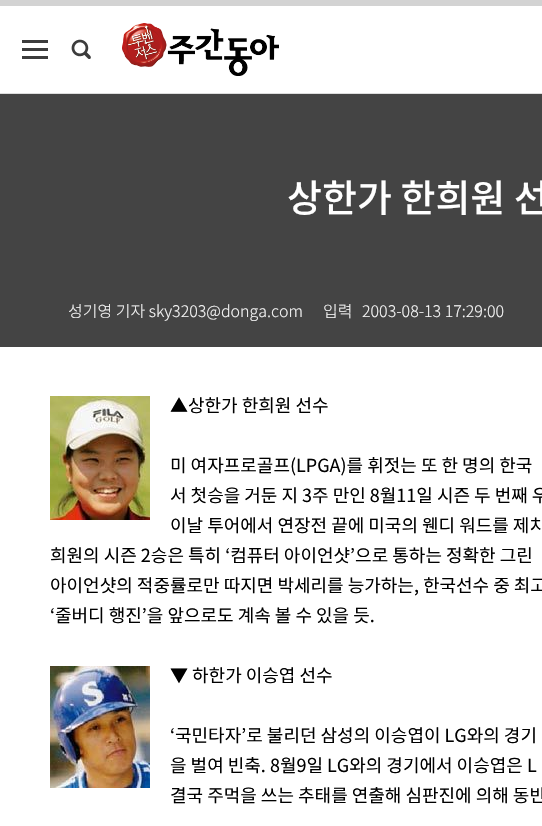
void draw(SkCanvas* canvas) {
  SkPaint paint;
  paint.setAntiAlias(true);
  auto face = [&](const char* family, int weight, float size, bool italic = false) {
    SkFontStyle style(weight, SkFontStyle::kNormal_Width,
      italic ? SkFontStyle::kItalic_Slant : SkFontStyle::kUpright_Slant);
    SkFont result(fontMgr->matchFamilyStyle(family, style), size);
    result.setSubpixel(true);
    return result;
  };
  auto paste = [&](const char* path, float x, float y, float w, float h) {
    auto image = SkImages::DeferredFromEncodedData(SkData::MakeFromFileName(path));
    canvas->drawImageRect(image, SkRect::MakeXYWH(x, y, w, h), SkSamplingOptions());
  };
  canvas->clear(0xffffffff);
  paint.setColor(0xffdddddd);
  canvas->drawRect(SkRect::MakeXYWH(0, 93, 542, 1), paint);
  paint.setColor(0xffd3d3d3);
  canvas->drawRect(SkRect::MakeXYWH(0, 0, 542, 6), paint);
  paste("img/1.png", 22, 40, 26, 19);
  paste("img/2.png", 71, 39, 20, 20);
  paste("img/3.png", 122, 23, 157, 53);
  paint.setColor(0xff444444);
  canvas->drawRect(SkRect::MakeXYWH(0, 94, 542, 253), paint);
  paste("img/4.png", 50, 396, 100, 124);
  paste("img/5.png", 50, 666, 100, 122);
  auto f0 = face("Noto Sans KR", 500, 38);
  paint.setColor(0xffffffff);
  canvas->drawString("상한가 한희원 선", 287, 212, f0, paint);
  auto f1 = face("Noto Sans KR", 300, 16);
  paint.setColor(0xfff5f5f5);
  {
    const struct { const char* s; float x, y; } items[] = {
      {"성기영 기자 sky3203@donga.com", 68, 317},
      {"입력", 323, 317},
      {"2003-08-13 17:29:00", 362, 317},
    };
    for (auto [s, x, y] : items) {
      canvas->drawString(s, x, y, f1, paint);
    }
  }
  auto f2 = face("Noto Sans KR", 400, 18);
  paint.setColor(0xff000000);
  {
    const struct { const char* s; float x, y; } items[] = {
      {"▲상한가 한희원 선수", 170, 412},
      {"미 여자프로골프(LPGA)를 휘젓는 또 한 명의 한국", 170, 472},
      {"서 첫승을 거둔 지 3주 만인 8월11일 시즌 두 번째 우", 170, 502},
      {"이날 투어에서 연장전 끝에 미국의 웬디 워드를 제치", 170, 532},
      {"희원의 시즌 2승은 특히 ‘컴퓨터 아이언샷’으로 통하는 정확한 그린", 50, 562},
      {"아이언샷의 적중률로만 따지면 박세리를 능가하는, 한국선수 중 최고", 50, 592},
      {"‘줄버디 행진’을 앞으로도 계속 볼 수 있을 듯.", 50, 622},
      {"▼ 하한가 이승엽 선수", 170, 682},
      {"‘국민타자’로 불리던 삼성의 이승엽이 LG와의 경기", 170, 742},
      {"을 벌여 빈축. 8월9일 LG와의 경기에서 이승엽은 L", 170, 772},
      {"결국 주먹을 쓰는 추태를 연출해 심판진에 의해 동반", 170, 802},
    };
    for (auto [s, x, y] : items) {
      canvas->drawString(s, x, y, f2, paint);
    }
  }
}
